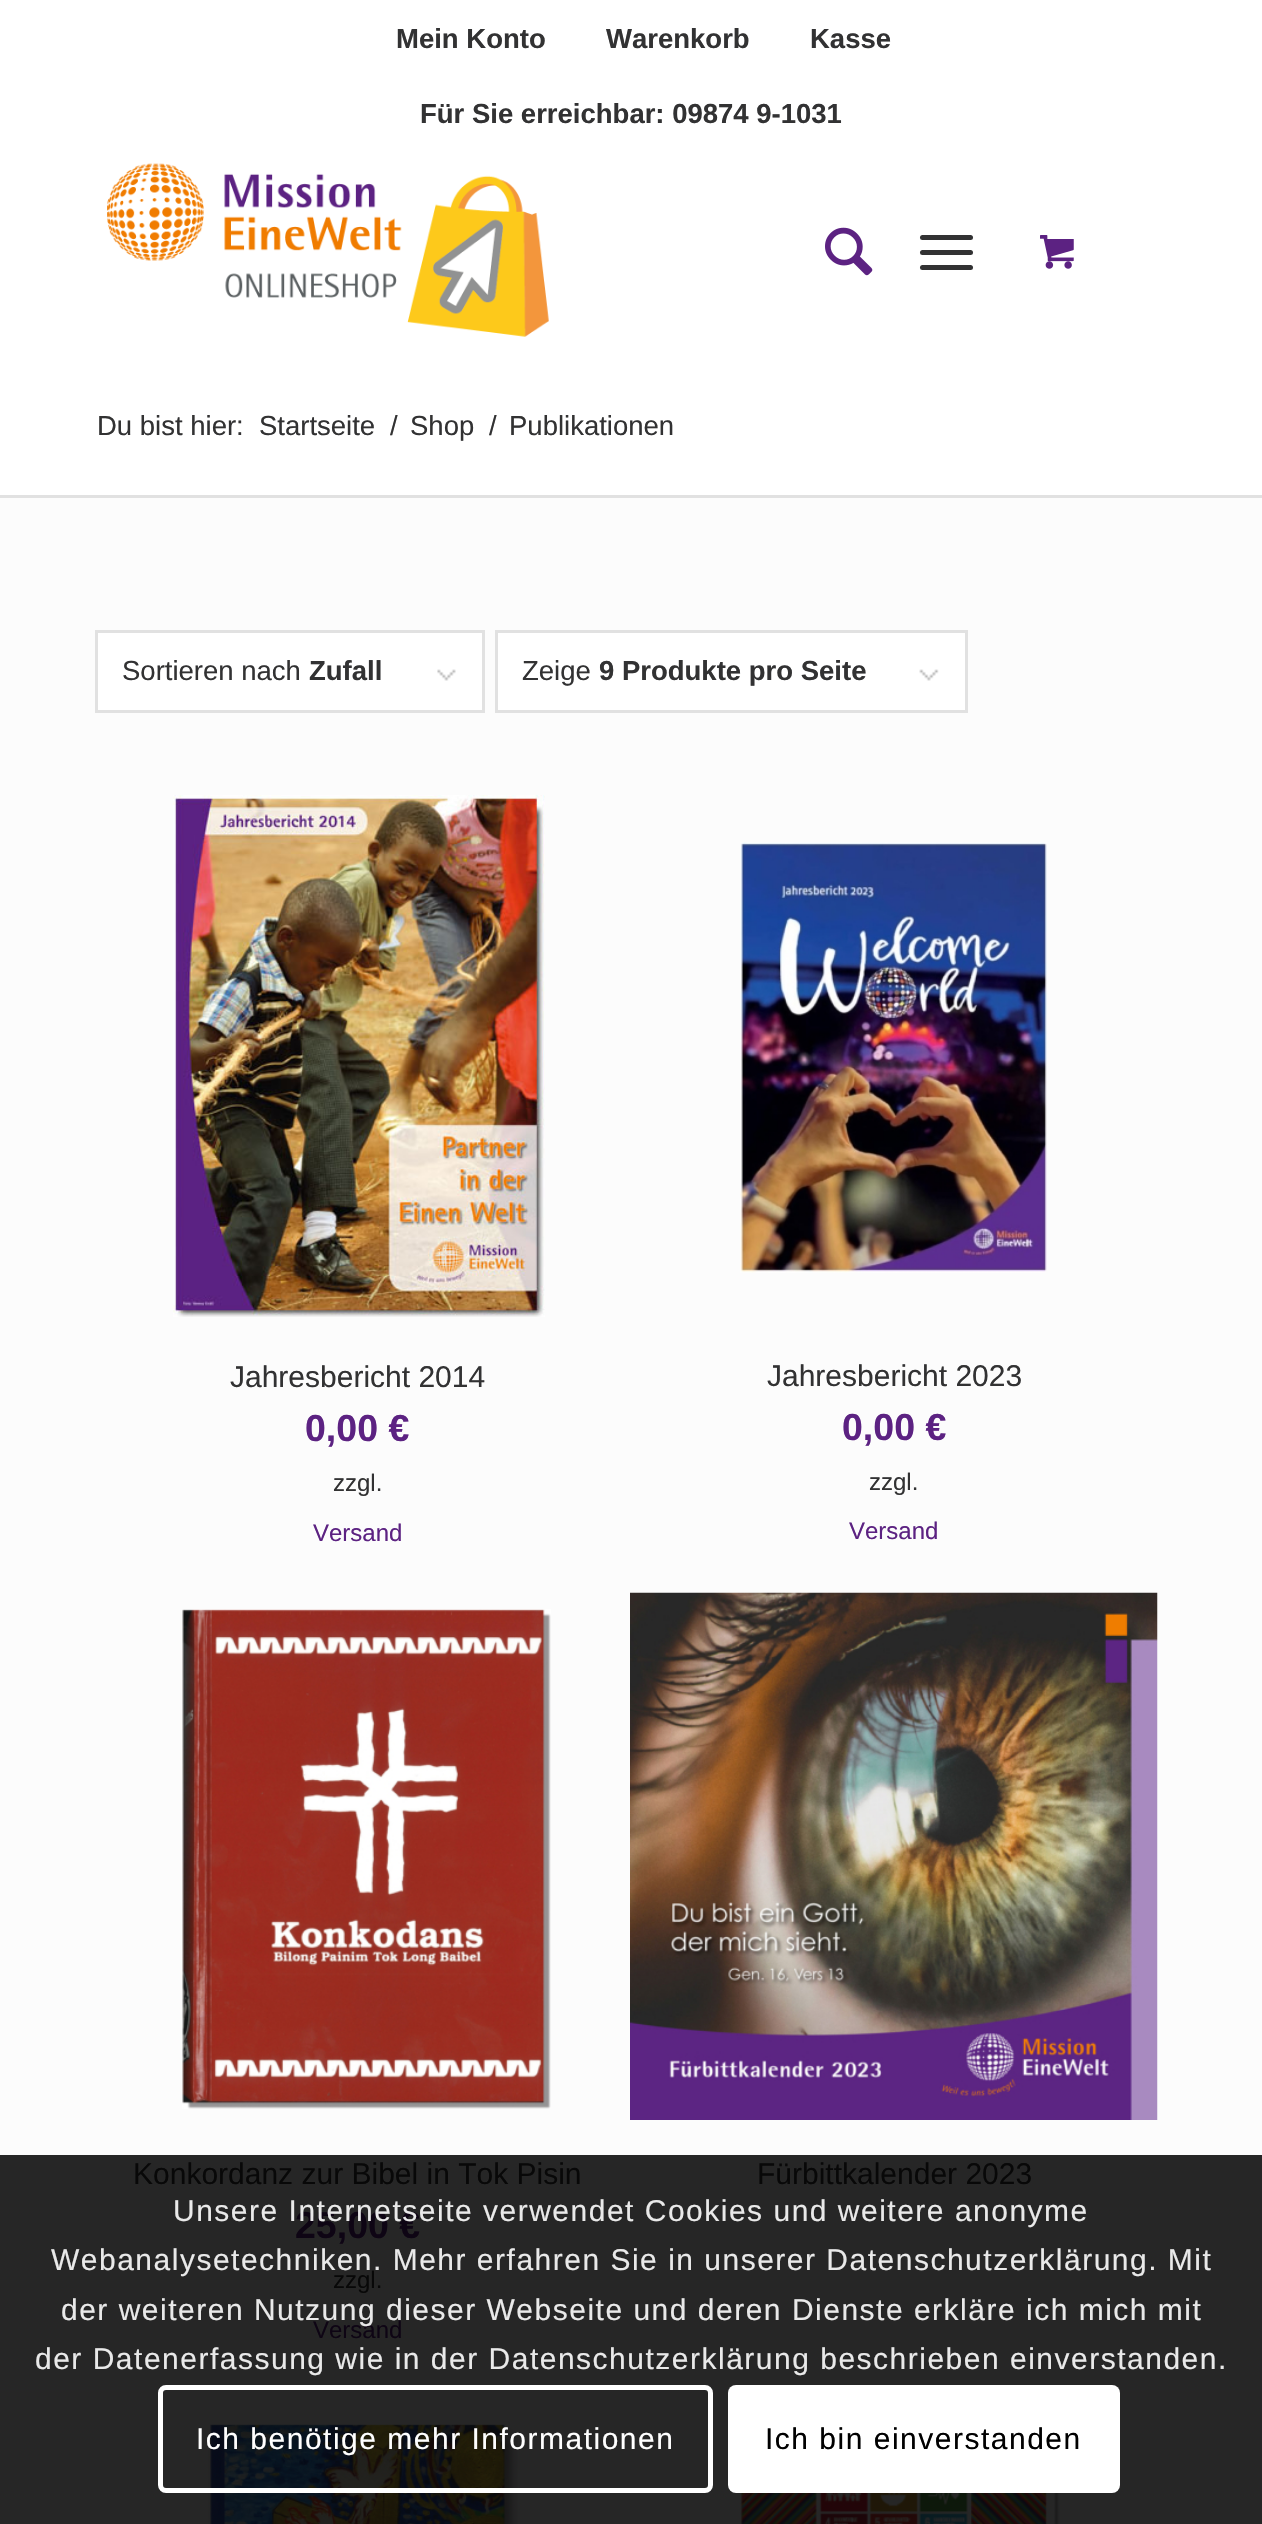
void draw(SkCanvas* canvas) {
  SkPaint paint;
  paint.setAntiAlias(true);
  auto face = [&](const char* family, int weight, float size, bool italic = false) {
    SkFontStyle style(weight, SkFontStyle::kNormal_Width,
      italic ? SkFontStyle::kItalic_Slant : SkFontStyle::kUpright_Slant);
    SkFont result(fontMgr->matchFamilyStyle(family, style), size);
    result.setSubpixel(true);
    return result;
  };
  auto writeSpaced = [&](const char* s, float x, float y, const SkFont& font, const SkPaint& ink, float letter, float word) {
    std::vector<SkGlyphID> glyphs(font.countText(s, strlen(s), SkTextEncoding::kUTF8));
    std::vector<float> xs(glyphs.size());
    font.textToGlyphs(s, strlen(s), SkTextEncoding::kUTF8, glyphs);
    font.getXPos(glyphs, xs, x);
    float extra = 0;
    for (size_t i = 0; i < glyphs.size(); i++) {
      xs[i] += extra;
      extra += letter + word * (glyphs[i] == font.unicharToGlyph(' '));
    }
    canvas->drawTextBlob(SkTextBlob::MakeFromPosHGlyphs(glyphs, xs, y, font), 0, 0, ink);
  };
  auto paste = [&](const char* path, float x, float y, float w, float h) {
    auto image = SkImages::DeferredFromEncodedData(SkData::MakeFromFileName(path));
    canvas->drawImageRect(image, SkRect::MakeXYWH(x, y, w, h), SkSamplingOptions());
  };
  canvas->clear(0xffffffff);
  paste("img/1.png", 107, 163, 442, 174);
  paste("img/2.png", 825, 227, 48, 49);
  paint.setColor(0xff323233);
  canvas->drawRoundRect(SkRect::MakeXYWH(920, 250, 53, 5), 2.5f, 2.5f, paint);
  canvas->drawRoundRect(SkRect::MakeXYWH(920, 235, 53, 5), 2.5f, 2.5f, paint);
  canvas->drawRoundRect(SkRect::MakeXYWH(920, 265, 53, 5), 2.5f, 2.5f, paint);
  paste("img/3.png", 1040, 235, 34, 34);
  {
    const struct { float x, y, w, h; SkColor color; } items[] = {
      {0, 498, 1262, 1657, 0xfffcfcfc},
      {0, 2155, 1262, 369, 0xff262626},
      {0, 495, 1262, 3, 0xffe1e1e1},
      {98, 633, 384, 77, 0xffffffff},
    };
    for (auto [x, y, w, h, color] : items) {
      paint.setColor(color);
      canvas->drawRect(SkRect::MakeXYWH(x, y, w, h), paint);
    }
  }
  paste("img/4.png", 437, 669, 19, 12);
  paint.setStroke(true);
  paint.setStrokeWidth(3);
  paint.setColor(0xffe1e1e1);
  canvas->drawRect(SkRect::MakeXYWH(96.5f, 631.5f, 387, 80), paint);
  paint.setStroke(false);
  paint.setColor(0xffffffff);
  canvas->drawRect(SkRect::MakeXYWH(498, 633, 467, 77), paint);
  paste("img/5.png", 919, 669, 20, 12);
  paint.setStroke(true);
  paint.setColor(0xffe1e1e1);
  canvas->drawRect(SkRect::MakeXYWH(496.5f, 631.5f, 470, 80), paint);
  paste("img/6.png", 173, 795, 372, 522);
  paste("img/7.png", 740, 842, 307, 431);
  paste("img/8.png", 182, 1609, 369, 500);
  paste("img/9.png", 630, 1592, 528, 528);
  paste("img/10.png", 208, 2424, 310, 100);
  paste("img/11.png", 740, 2493, 320, 31);
  paint.setStrokeWidth(5);
  paint.setColor(0xffffffff);
  canvas->drawRoundRect(SkRect::MakeXYWH(160.5f, 2387.5f, 550, 103), 5.5f, 5.5f, paint);
  paint.setStroke(false);
  canvas->drawRoundRect(SkRect::MakeXYWH(728, 2385, 392, 108), 8, 8, paint);
  auto f0 = face("Liberation Sans", 700, 27.5f);
  paint.setColor(0xff323233);
  {
    const struct { const char* s; float x, y; } items[] = {
      {"Mein Konto", 396, 48},
      {"Warenkorb", 606, 48},
      {"Kasse", 810, 48},
      {"Für Sie erreichbar: 09874 9-1031", 420, 123},
    };
    for (auto [s, x, y] : items) {
      canvas->drawString(s, x, y, f0, paint);
    }
  }
  auto f1 = face("Liberation Sans", 400, 27.5f);
  {
    const struct { const char* s; float x, y; } items[] = {
      {"Du bist hier:", 97, 435},
      {"Startseite", 259, 435},
      {"/", 390, 435},
      {"Shop", 410, 435},
      {"/", 489, 435},
      {"Publikationen", 509, 435},
      {"Sortieren nach", 122, 680},
    };
    for (auto [s, x, y] : items) {
      canvas->drawString(s, x, y, f1, paint);
    }
  }
  canvas->drawString("Zufall", 309, 680, f0, paint);
  canvas->drawString("Zeige", 522, 680, f1, paint);
  canvas->drawString("9 Produkte pro Seite", 599, 680, f0, paint);
  auto f2 = face("Liberation Sans", 400, 30);
  canvas->drawString("Jahresbericht 2014", 230, 1387, f2, paint);
  auto f3 = face("Liberation Sans", 700, 37.5f);
  paint.setColor(0xff5c2282);
  canvas->drawString("0,00 €", 305, 1441, f3, paint);
  auto f4 = face("Liberation Sans", 400, 24);
  paint.setColor(0xff323233);
  canvas->drawString("zzgl.", 333, 1491, f4, paint);
  paint.setColor(0xff5c2282);
  canvas->drawString("Versand", 313, 1541, f4, paint);
  paint.setColor(0xff323233);
  canvas->drawString("Jahresbericht 2023", 767, 1386, f2, paint);
  paint.setColor(0xff5c2282);
  canvas->drawString("0,00 €", 842, 1440, f3, paint);
  paint.setColor(0xff323233);
  canvas->drawString("zzgl.", 869, 1490, f4, paint);
  paint.setColor(0xff5c2282);
  canvas->drawString("Versand", 849, 1539, f4, paint);
  paint.setColor(0xff080808);
  canvas->drawString("Konkordanz zur Bibel in Tok Pisin", 133, 2184, f2, paint);
  paint.setColor(0xff0e0514);
  canvas->drawString("25,00 €", 295, 2238, f3, paint);
  paint.setColor(0xff080808);
  canvas->drawString("zzgl.", 333, 2288, f4, paint);
  paint.setColor(0xff0e0514);
  canvas->drawString("Versand", 313, 2338, f4, paint);
  paint.setColor(0xff080808);
  canvas->drawString("Fürbittkalender 2023", 757, 2184, f2, paint);
  paint.setColor(0xffe9e9e9);
  {
    const struct { const char* s; float x, y; } items[] = {
      {"Unsere Internetseite verwendet Cookies und weitere anonyme", 173, 2221},
      {"Webanalysetechniken. Mehr erfahren Sie in unserer Datenschutzerklärung. Mit", 51, 2270},
      {"der weiteren Nutzung dieser Webseite und deren Dienste erkläre ich mich mit", 61, 2320},
      {"der Datenerfassung wie in der Datenschutzerklärung beschrieben einverstanden.", 35, 2369},
    };
    for (auto [s, x, y] : items) {
      writeSpaced(s, x, y, f2, paint, 1.5f, 0);
    }
  }
  paint.setColor(0xffffffff);
  writeSpaced("Ich benötige mehr Informationen", 196, 2449, f2, paint, 1.5f, 0);
  paint.setColor(0xff000000);
  writeSpaced("Ich bin einverstanden", 765, 2449, f2, paint, 1.5f, 0);
}
